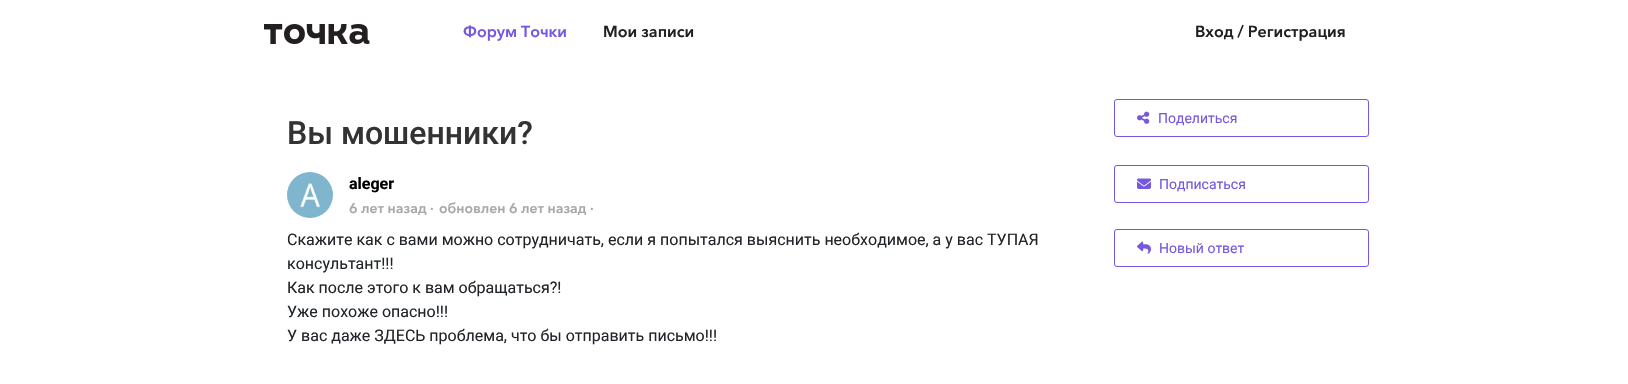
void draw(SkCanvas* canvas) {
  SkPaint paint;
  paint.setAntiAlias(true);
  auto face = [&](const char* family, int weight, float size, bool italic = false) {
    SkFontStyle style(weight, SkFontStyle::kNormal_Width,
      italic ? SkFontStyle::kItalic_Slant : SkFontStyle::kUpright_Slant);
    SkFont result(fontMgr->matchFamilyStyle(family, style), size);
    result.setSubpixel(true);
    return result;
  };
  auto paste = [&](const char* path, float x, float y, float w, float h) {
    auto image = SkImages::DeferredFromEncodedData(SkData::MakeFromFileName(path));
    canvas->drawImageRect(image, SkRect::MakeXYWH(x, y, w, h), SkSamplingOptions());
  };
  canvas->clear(0xffffffff);
  paste("img/1.png", 264, 24, 106, 20);
  paint.setColor(0xff7fb6ce);
  canvas->drawCircle(310, 195, 23, paint);
  paste("img/2.png", 300, 183, 20, 25);
  paint.setStroke(true);
  paint.setStrokeWidth(1);
  paint.setColor(0xff7658e0);
  canvas->drawRoundRect(SkRect::MakeXYWH(1114.5f, 99.5f, 254, 37), 2.5f, 2.5f, paint);
  paste("img/3.png", 1137, 111, 13, 13);
  canvas->drawRoundRect(SkRect::MakeXYWH(1114.5f, 165.5f, 254, 37), 2.5f, 2.5f, paint);
  paste("img/4.png", 1137, 178, 14, 11);
  canvas->drawRoundRect(SkRect::MakeXYWH(1114.5f, 229.5f, 254, 37), 2.5f, 2.5f, paint);
  paste("img/5.png", 1137, 241, 14, 13);
  auto f0 = face("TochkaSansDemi", 700, 16);
  paint.setStroke(false);
  canvas->drawString("Форум Точки", 463, 37, f0, paint);
  paint.setColor(0xff231f20);
  canvas->drawString("Мои записи", 603, 37, f0, paint);
  canvas->drawString("Вход / Регистрация", 1195, 37, f0, paint);
  auto f1 = face("Roboto", 500, 32);
  paint.setColor(0xff333333);
  canvas->drawString("Вы мошенники?", 287, 144, f1, paint);
  auto f2 = face("Roboto", 700, 16);
  paint.setColor(0xff000000);
  canvas->drawString("aleger", 349, 189, f2, paint);
  auto f3 = face("TochkaSansDemi", 700, 14);
  paint.setColor(0xffa8a8a8);
  {
    const struct { const char* s; float x, y; } items[] = {
      {"6 лет назад", 349, 213},
      {"·", 430, 213},
      {"обновлен 6 лет назад", 439, 213},
      {"·", 590, 213},
    };
    for (auto [s, x, y] : items) {
      canvas->drawString(s, x, y, f3, paint);
    }
  }
  auto f4 = face("Roboto", 400, 16);
  paint.setColor(0xff212529);
  {
    const struct { const char* s; float x, y; } items[] = {
      {"Скажите как с вами можно сотрудничать, если я попытался выяснить необходимое, а у вас ТУПАЯ", 287, 245},
      {"консультант!!!", 287, 269},
      {"Как после этого к вам обращаться?!", 287, 293},
      {"Уже похоже опасно!!!", 287, 317},
      {"У вас даже ЗДЕСЬ проблема, что бы отправить письмо!!!", 287, 341},
    };
    for (auto [s, x, y] : items) {
      canvas->drawString(s, x, y, f4, paint);
    }
  }
  auto f5 = face("Roboto", 400, 14);
  paint.setColor(0xff7658e0);
  {
    const struct { const char* s; float x, y; } items[] = {
      {"Поделиться", 1158, 123},
      {"Подписаться", 1159, 189},
      {"Новый ответ", 1159, 253},
    };
    for (auto [s, x, y] : items) {
      canvas->drawString(s, x, y, f5, paint);
    }
  }
}
